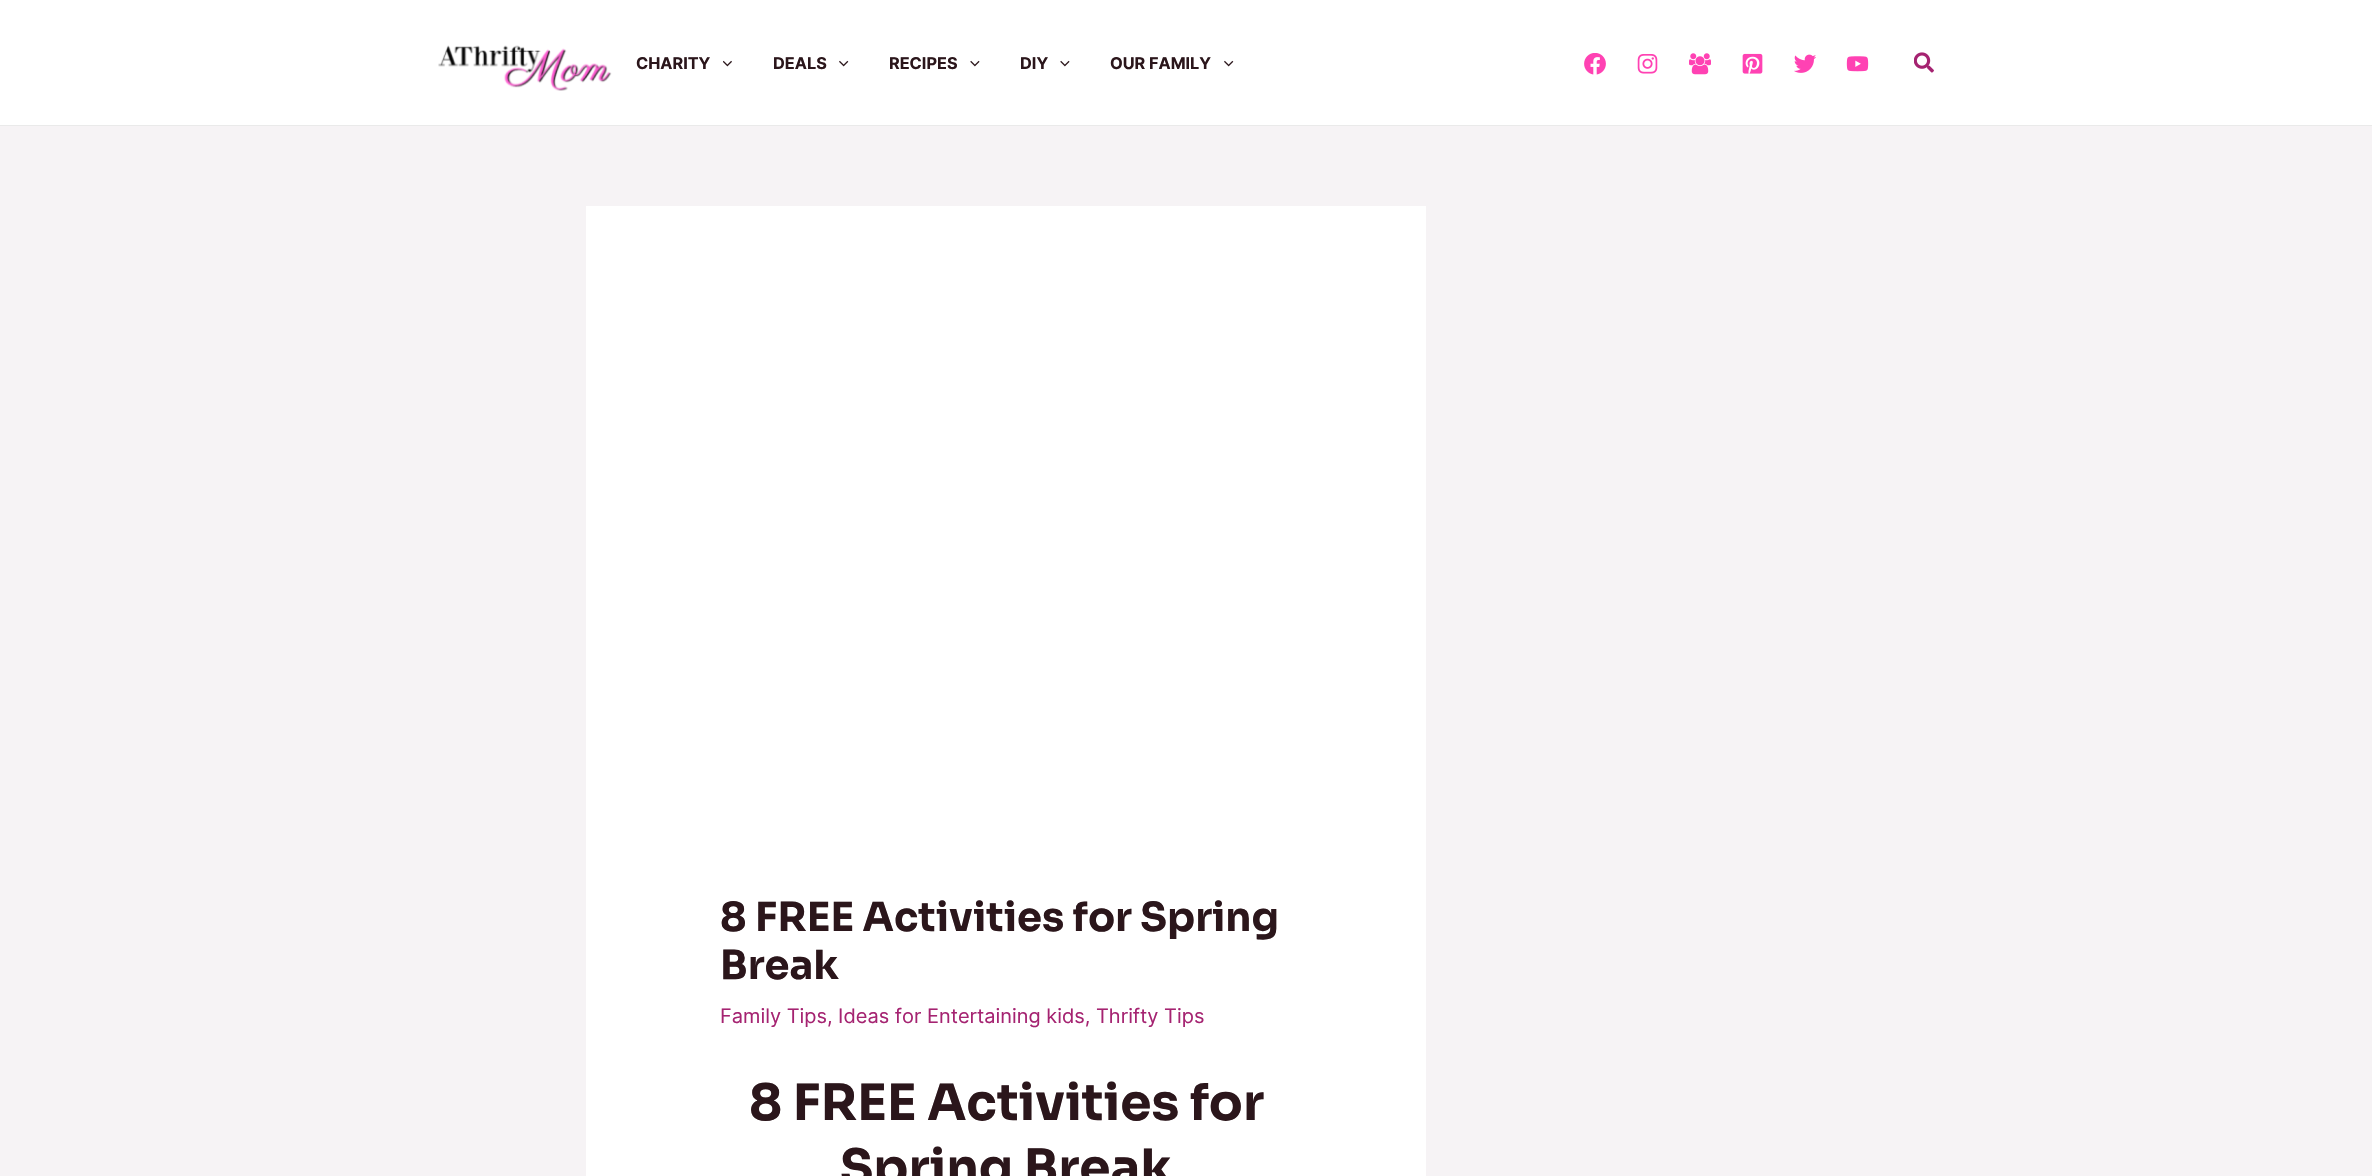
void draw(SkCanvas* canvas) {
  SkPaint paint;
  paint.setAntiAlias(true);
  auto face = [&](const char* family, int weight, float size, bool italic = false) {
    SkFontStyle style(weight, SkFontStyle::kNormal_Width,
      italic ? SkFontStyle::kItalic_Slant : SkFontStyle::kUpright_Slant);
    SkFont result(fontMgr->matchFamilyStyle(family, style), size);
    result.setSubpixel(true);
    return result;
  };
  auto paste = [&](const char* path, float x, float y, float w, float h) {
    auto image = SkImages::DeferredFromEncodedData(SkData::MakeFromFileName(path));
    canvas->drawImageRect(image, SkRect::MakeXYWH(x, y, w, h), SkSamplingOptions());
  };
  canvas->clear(0xfff6f3f5);
  paint.setColor(0xffffffff);
  canvas->drawRect(SkRect::MakeXYWH(0, 0, 2372, 125), paint);
  paint.setColor(0xffeaeaea);
  canvas->drawRect(SkRect::MakeXYWH(0, 125, 2372, 1), paint);
  paste("img/1.png", 438, 45, 174, 46);
  paste("img/2.png", 723, 60, 9, 7);
  paste("img/3.png", 839, 60, 10, 7);
  paste("img/4.png", 970, 60, 10, 7);
  paste("img/4.png", 1060, 60, 10, 7);
  paste("img/3.png", 1224, 60, 10, 7);
  paste("img/5.png", 1584, 53, 22, 22);
  paste("img/6.png", 1637, 54, 21, 20);
  paste("img/7.png", 1689, 53, 22, 22);
  paste("img/8.png", 1742, 53, 21, 21);
  paste("img/9.png", 1794, 54, 22, 19);
  paste("img/10.png", 1846, 56, 23, 16);
  paste("img/11.png", 1914, 52, 20, 21);
  paint.setColor(0xffffffff);
  canvas->drawRect(SkRect::MakeXYWH(586, 206, 840, 970), paint);
  auto f0 = face("Inter", 700, 16.25f);
  paint.setColor(0xff2b161b);
  {
    const struct { const char* s; float x, y; } items[] = {
      {"CHARITY", 636, 69},
      {"DEALS", 773, 69},
      {"RECIPES", 889, 69},
      {"DIY", 1020, 69},
      {"OUR FAMILY", 1110, 69},
    };
    for (auto [s, x, y] : items) {
      canvas->drawString(s, x, y, f0, paint);
    }
  }
  auto f1 = face("Sora", 700, 40);
  canvas->drawString("8 FREE Activities for Spring", 720, 931, f1, paint);
  canvas->drawString("Break", 720, 979, f1, paint);
  auto f2 = face("Inter", 400, 20);
  paint.setColor(0xffa52371);
  canvas->drawString("Family Tips, Ideas for Entertaining kids, Thrifty Tips", 720, 1023, f2, paint);
  auto f3 = face("Sora", 700, 50);
  paint.setColor(0xff2b161b);
  canvas->drawString("8 FREE Activities for", 749, 1120, f3, paint);
  canvas->drawString("Spring Break", 840, 1185, f3, paint);
}
